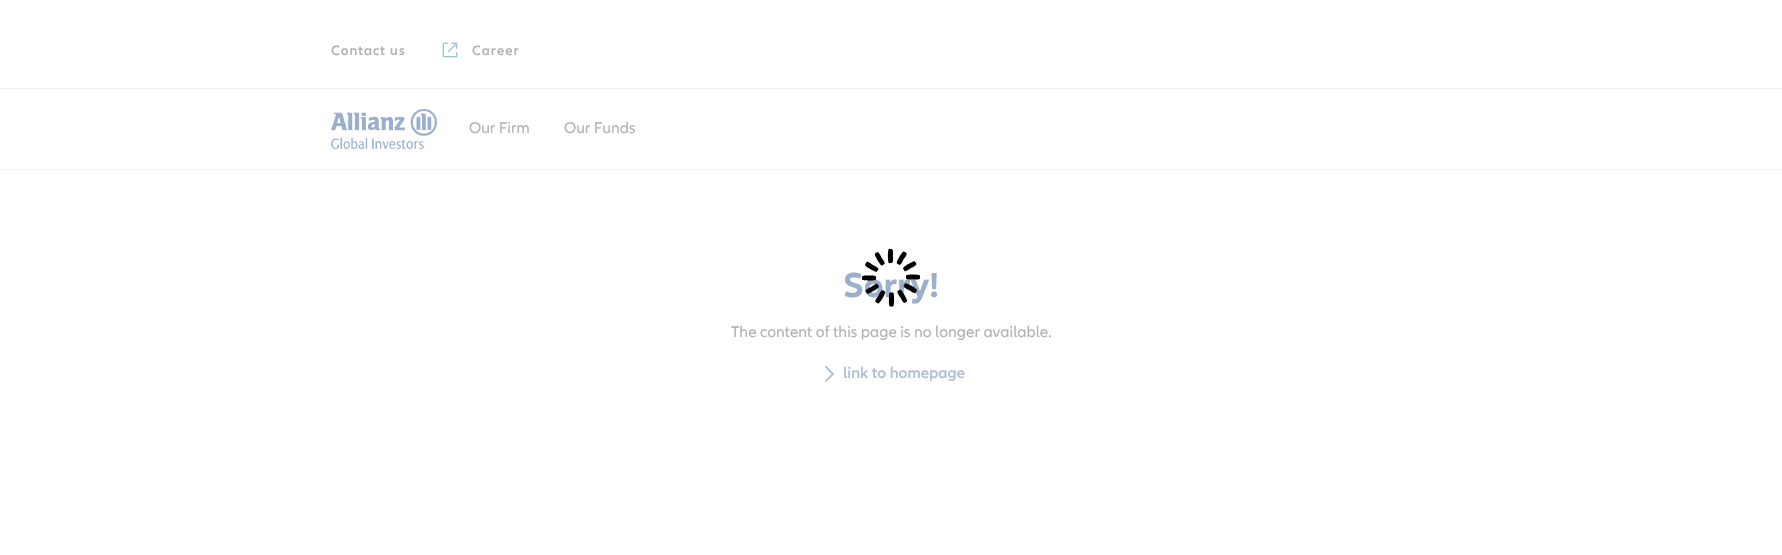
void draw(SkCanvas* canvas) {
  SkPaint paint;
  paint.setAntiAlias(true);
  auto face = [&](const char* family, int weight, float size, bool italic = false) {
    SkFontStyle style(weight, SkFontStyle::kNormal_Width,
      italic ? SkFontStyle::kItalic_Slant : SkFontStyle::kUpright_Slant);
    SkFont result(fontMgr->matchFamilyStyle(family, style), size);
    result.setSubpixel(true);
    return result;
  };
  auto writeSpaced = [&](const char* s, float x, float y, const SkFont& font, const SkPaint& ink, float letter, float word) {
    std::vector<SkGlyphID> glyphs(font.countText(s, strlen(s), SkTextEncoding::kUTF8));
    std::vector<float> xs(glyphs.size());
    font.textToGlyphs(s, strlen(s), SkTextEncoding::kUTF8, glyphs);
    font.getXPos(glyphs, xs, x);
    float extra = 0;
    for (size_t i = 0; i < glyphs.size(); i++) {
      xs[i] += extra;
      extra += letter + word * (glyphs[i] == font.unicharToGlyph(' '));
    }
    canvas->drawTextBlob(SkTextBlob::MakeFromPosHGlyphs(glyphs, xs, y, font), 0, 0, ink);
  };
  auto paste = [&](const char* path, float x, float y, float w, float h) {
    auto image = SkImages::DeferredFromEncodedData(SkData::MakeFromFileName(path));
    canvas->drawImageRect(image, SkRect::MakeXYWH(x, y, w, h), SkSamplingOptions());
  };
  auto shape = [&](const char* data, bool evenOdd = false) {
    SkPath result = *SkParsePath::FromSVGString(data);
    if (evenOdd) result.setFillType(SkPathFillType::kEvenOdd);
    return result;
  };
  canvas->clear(0xffffffff);
  paint.setColor(0xfff0f0f0);
  canvas->drawRect(SkRect::MakeXYWH(0, 88, 1782, 1), paint);
  paste("img/1.png", 442, 42, 16, 16);
  canvas->drawRect(SkRect::MakeXYWH(0, 169, 1782, 1), paint);
  paste("img/2.png", 331, 109, 106, 40);
  paint.setColor(0xff000000);
  canvas->drawPath(shape("M889 249H892C893.5 250 893 255 893 256C893 257 893.5 262 892 263H889C887.5 263 887.5 249 889 249ZM904 251.5L906.5 253C907.5 254.5 904 258.5 903.5 259.5C903 260.5 901 265 899.5 265L897 263.5C895.5 262.5 902.5 250.5 904 251.5Z"), paint);
  paste("img/3.png", 825, 366, 9, 16);
  auto f0 = face("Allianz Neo", 600, 14);
  paint.setColor(0xffb1b1b1);
  writeSpaced("Contact us", 331, 55, f0, paint, 1, 0);
  writeSpaced("Career", 472, 55, f0, paint, 1, 0);
  auto f1 = face("Allianz Neo", 400, 16);
  canvas->drawString("Our Firm", 469, 133, f1, paint);
  canvas->drawString("Our Funds", 564, 133, f1, paint);
  auto f2 = face("Allianz Neo", 700, 36);
  paint.setColor(0xff99afcd);
  canvas->drawString("Sorry!", 843, 297, f2, paint);
  paint.setColor(0xff000000);
  canvas->drawPath(shape("M915 261.5L916.5 264C916.5 265.5 912 267.5 911 268C910 268.5 906 272 904.5 271L903 268.5C902.5 267 914.5 260 915 261.5ZM920 275.5V278.5C919 280 914 279.5 913 279.5C912 279.5 907 280 906 278.5V275.5C906 274 920 274 920 275.5ZM917 290.5L915.5 293C914 294 910 290.5 909 290C908 289.5 903.5 287.5 903.5 286L905 283.5C906 282 918 289 917 290.5Z"), paint);
  canvas->drawPath(shape("M907 301.5L904.5 303C903 303 901 298.5 900.5 297.5C900 296.5 896.5 292.5 897.5 291L900 289.5C901.5 289 908.5 301 907 301.5ZM893 306.5H890C888.5 305.5 889 300.5 889 299.5C889 298.5 888.5 293.5 890 292.5H893C894.5 292.5 894.5 306.5 893 306.5ZM878 303.5L875.5 302C874.5 300.5 878 296.5 878.5 295.5C879 294.5 881 290 882.5 290L885 291.5C886.5 292.5 879.5 304.5 878 303.5Z"), paint);
  canvas->drawPath(shape("M867 293.5L865.5 291C865.5 289.5 870 287.5 871 287C872 286.5 876 283 877.5 284L879 286.5C879.5 288 867.5 295 867 293.5ZM862 279.5V276.5C863 275 868 275.5 869 275.5C870 275.5 875 275 876 276.5V279.5C876 281 862 281 862 279.5ZM865 264.5L866.5 262C868 261 872 264.5 873 265C874 265.5 878.5 267.5 878.5 269L877 271.5C876 273 864 266 865 264.5Z"), paint);
  canvas->drawPath(shape("M875 253.5L877.5 252C879 252 881 256.5 881.5 257.5C882 258.5 885.5 262.5 884.5 264L882 265.5C880.5 266 873.5 254 875 253.5Z"), paint);
  paint.setColor(0xffb1b1b1);
  canvas->drawString("The content of this page is no longer available.", 731, 337, f1, paint);
  auto f3 = face("Allianz Neo", 600, 16);
  paint.setColor(0xffadc0d5);
  canvas->drawString("link to homepage", 843, 378, f3, paint);
}
